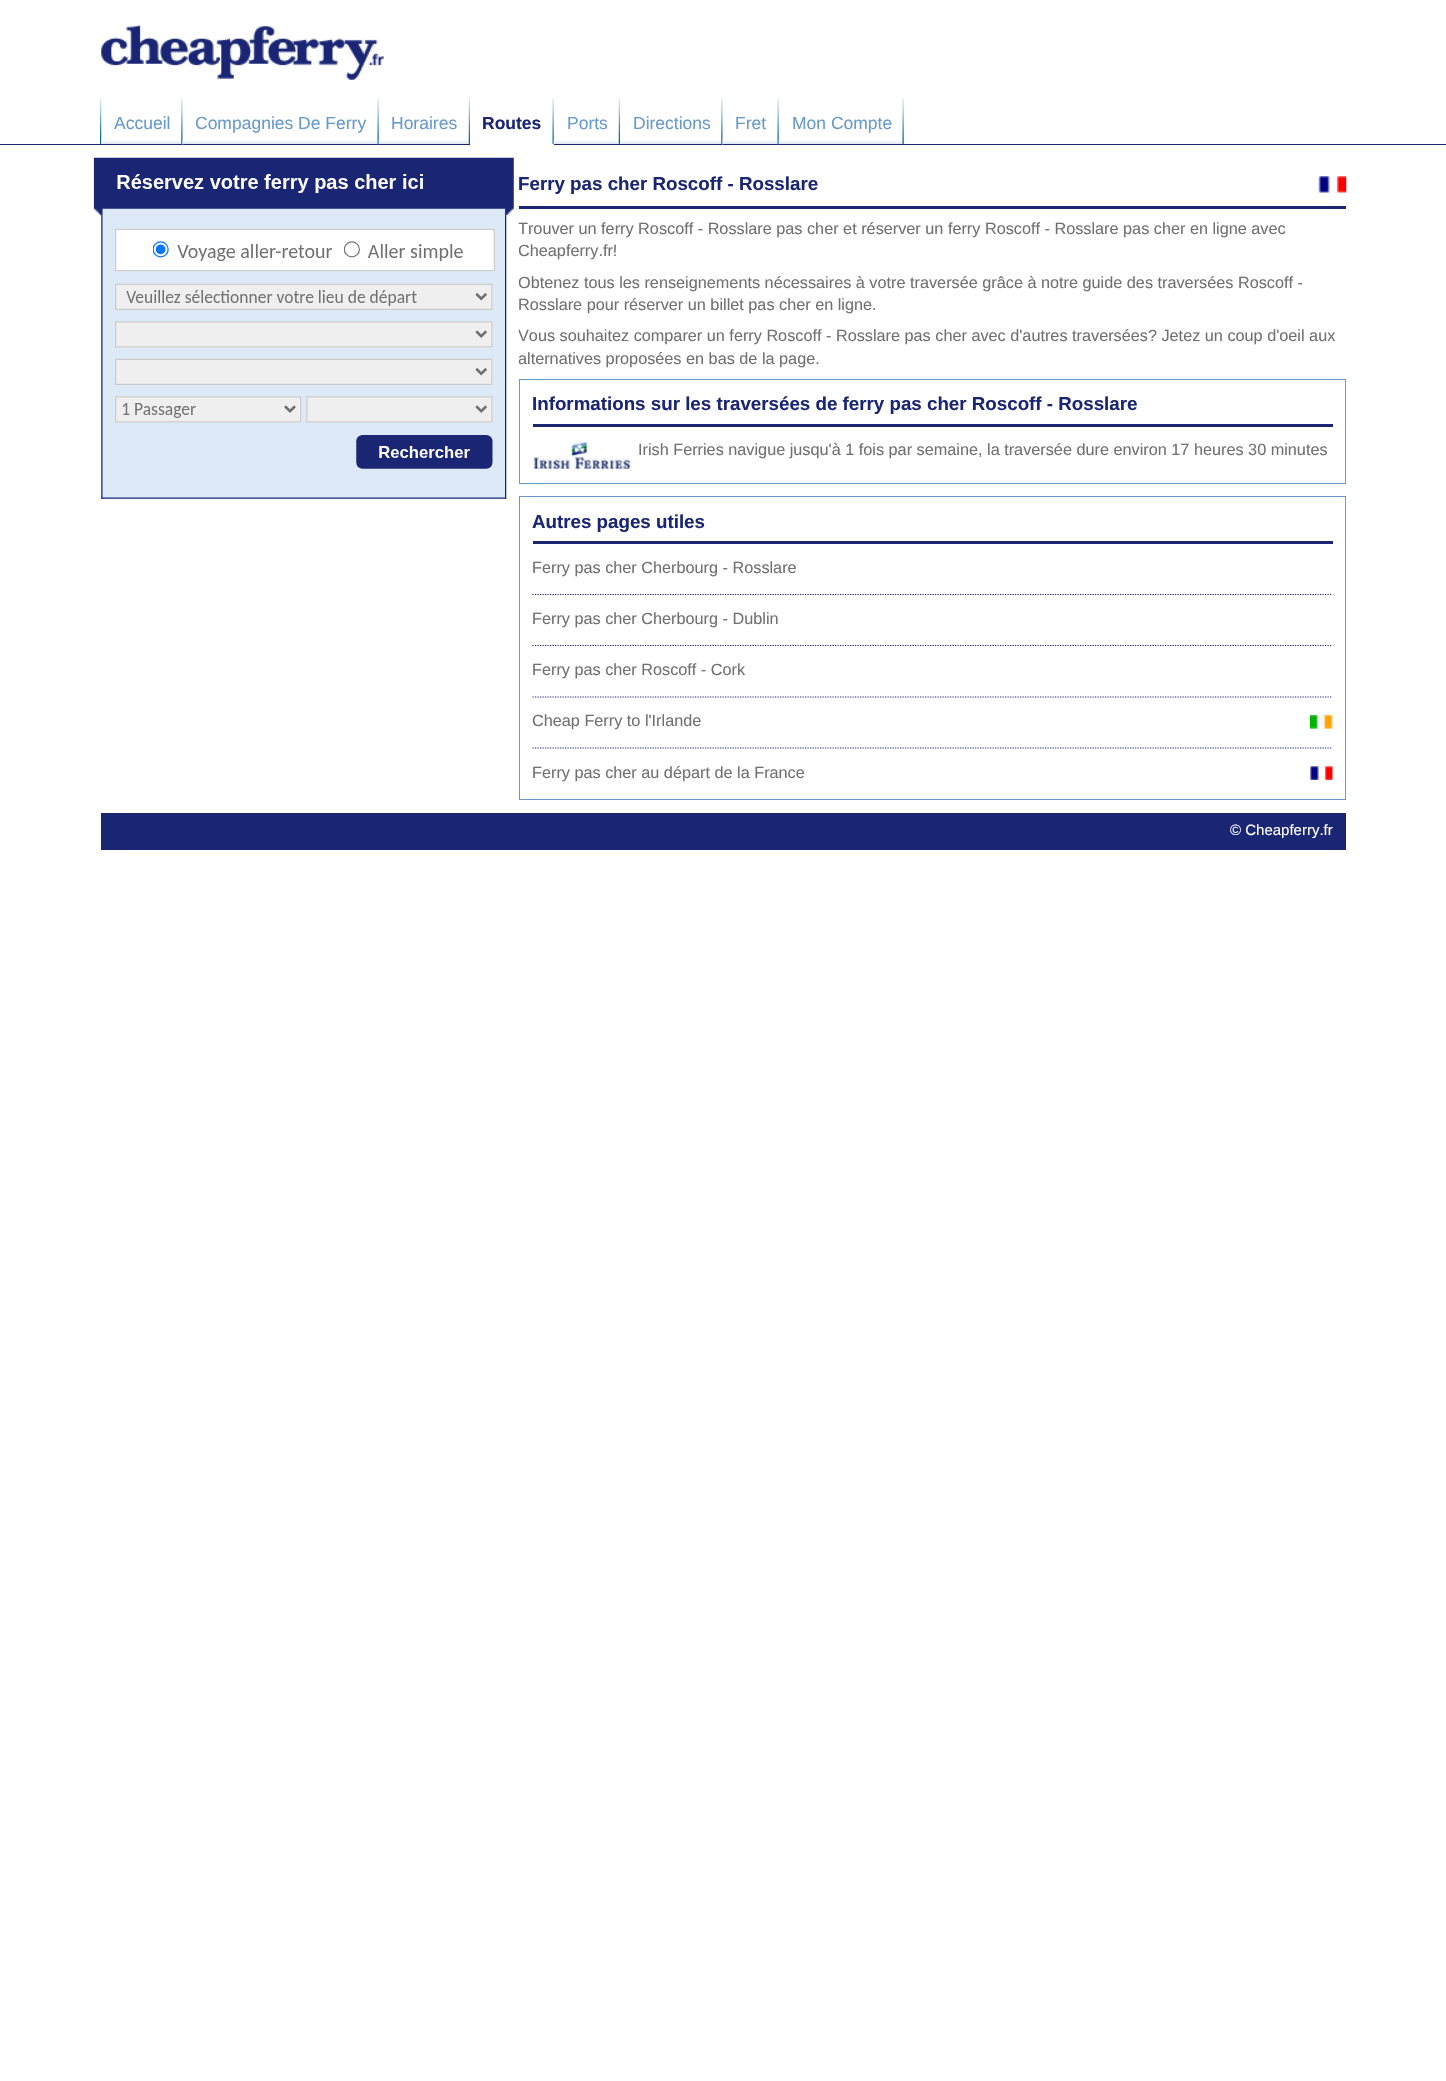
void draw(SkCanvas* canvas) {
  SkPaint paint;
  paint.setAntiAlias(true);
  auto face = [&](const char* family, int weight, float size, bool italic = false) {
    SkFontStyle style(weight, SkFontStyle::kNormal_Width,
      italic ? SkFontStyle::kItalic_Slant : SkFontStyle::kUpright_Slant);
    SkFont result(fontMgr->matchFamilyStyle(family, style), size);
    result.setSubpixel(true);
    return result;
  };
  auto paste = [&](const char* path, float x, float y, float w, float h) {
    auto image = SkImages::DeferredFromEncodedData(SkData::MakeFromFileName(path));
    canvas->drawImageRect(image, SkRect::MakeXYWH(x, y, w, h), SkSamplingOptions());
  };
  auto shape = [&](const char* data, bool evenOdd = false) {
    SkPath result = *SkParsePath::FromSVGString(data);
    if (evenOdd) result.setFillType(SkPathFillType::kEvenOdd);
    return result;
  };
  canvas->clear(0xffffffff);
  paste("img/1.png", 101, 25, 283, 55);
  paint.setColor(0xff1a2674);
  canvas->drawRect(SkRect::MakeXYWH(0, 144, 1446, 1), paint);
  paste("img/2.png", 100, 98, 2, 46);
  paste("img/3.png", 101, 140, 82, 4);
  paste("img/4.png", 181, 98, 2, 46);
  paste("img/5.png", 182, 140, 197, 5);
  paste("img/6.png", 377, 98, 2, 46);
  canvas->drawRect(SkRect::MakeXYWH(183, 144, 196, 1), paint);
  paste("img/7.png", 378, 140, 92, 5);
  paste("img/8.png", 468, 98, 2, 46);
  canvas->drawRect(SkRect::MakeXYWH(379, 144, 91, 1), paint);
  paste("img/9.png", 552, 98, 2, 46);
  paint.setColor(0xffffffff);
  canvas->drawRect(SkRect::MakeXYWH(470, 144, 84, 1), paint);
  paste("img/10.png", 553, 140, 67, 5);
  paste("img/8.png", 618, 98, 2, 46);
  paint.setColor(0xff1a2674);
  canvas->drawRect(SkRect::MakeXYWH(554, 144, 66, 1), paint);
  paste("img/11.png", 620, 140, 103, 4);
  paste("img/4.png", 721, 98, 2, 46);
  paste("img/12.png", 722, 140, 57, 5);
  paste("img/6.png", 777, 98, 2, 46);
  canvas->drawRect(SkRect::MakeXYWH(723, 144, 56, 1), paint);
  paste("img/13.png", 778, 140, 126, 5);
  paste("img/6.png", 902, 98, 2, 46);
  canvas->drawRect(SkRect::MakeXYWH(779, 144, 125, 1), paint);
  canvas->drawRect(SkRect::MakeXYWH(519, 206, 827, 3), paint);
  paste("img/15.png", 1318, 176, 29, 17);
  paint.setStroke(true);
  paint.setStrokeWidth(1);
  paint.setColor(0xff6699cc);
  canvas->drawRect(SkRect::MakeXYWH(519.5f, 379.5f, 826, 104), paint);
  paint.setStroke(false);
  paint.setColor(0xff1a2674);
  canvas->drawRect(SkRect::MakeXYWH(533, 424, 800, 3), paint);
  paste("img/16.png", 533, 441, 98, 28);
  paint.setStroke(true);
  paint.setColor(0xff6699cc);
  canvas->drawRect(SkRect::MakeXYWH(519.5f, 496.5f, 826, 303), paint);
  paint.setStroke(false);
  paint.setColor(0xff1a2674);
  canvas->drawRect(SkRect::MakeXYWH(533, 541, 800, 3), paint);
  paint.setStroke(true);
  paint.setStrokeWidth(1.2f);
  paint.setPathEffect(SkDashPathEffect::Make({{1.25f, 1.25f}}, 0));
  canvas->drawPath(shape("M532.5 594.5H1332.5"), paint);
  paint.setPathEffect(nullptr);
  paint.setPathEffect(SkDashPathEffect::Make({{1.25f, 1.25f}}, 0));
  canvas->drawPath(shape("M532.5 645.5H1332.5"), paint);
  paint.setPathEffect(nullptr);
  paint.setPathEffect(SkDashPathEffect::Make({{1.25f, 1.25f}}, 0));
  canvas->drawPath(shape("M532.5 697H1332.5"), paint);
  paint.setPathEffect(nullptr);
  paint.setPathEffect(SkDashPathEffect::Make({{1.25f, 1.25f}}, 0));
  canvas->drawPath(shape("M532.5 748H1332.5"), paint);
  paint.setPathEffect(nullptr);
  paste("img/17.png", 1310, 715, 23, 14);
  paste("img/18.png", 1310, 766, 23, 14);
  paint.setStroke(false);
  canvas->drawRect(SkRect::MakeXYWH(101, 813, 1245, 37), paint);
  auto f0 = face("Liberation Sans", 400, 17.5f);
  paint.setColor(0xff6699cc);
  {
    const struct { const char* s; float x, y; } items[] = {
      {"Accueil", 114, 129},
      {"Compagnies De Ferry", 195, 129},
      {"Horaires", 391, 129},
    };
    for (auto [s, x, y] : items) {
      canvas->drawString(s, x, y, f0, paint);
    }
  }
  auto f1 = face("Liberation Sans", 700, 17.5f);
  paint.setColor(0xff1a2674);
  canvas->drawString("Routes", 482, 129, f1, paint);
  paint.setColor(0xff6699cc);
  {
    const struct { const char* s; float x, y; } items[] = {
      {"Ports", 567, 129},
      {"Directions", 633, 129},
      {"Fret", 735, 129},
      {"Mon Compte", 792, 129},
    };
    for (auto [s, x, y] : items) {
      canvas->drawString(s, x, y, f0, paint);
    }
  }
  auto f2 = face("Liberation Sans", 700, 18.75f);
  paint.setColor(0xff1a2674);
  canvas->drawString("Ferry pas cher Roscoff - Rosslare", 518, 190, f2, paint);
  auto f3 = face("Liberation Sans", 400, 16.25f);
  paint.setColor(0xff707070);
  {
    const struct { const char* s; float x, y; } items[] = {
      {"Trouver un ferry Roscoff - Rosslare pas cher et réserver un ferry Roscoff - Rosslare pas cher en ligne avec", 518, 234},
      {"Cheapferry.fr!", 518, 256},
      {"Obtenez tous les renseignements nécessaires à votre traversée grâce à notre guide des traversées Roscoff -", 518, 288},
      {"Rosslare pour réserver un billet pas cher en ligne.", 518, 310},
      {"Vous souhaitez comparer un ferry Roscoff - Rosslare pas cher avec d'autres traversées? Jetez un coup d'oeil aux", 518, 341},
      {"alternatives proposées en bas de la page.", 518, 364},
    };
    for (auto [s, x, y] : items) {
      canvas->drawString(s, x, y, f3, paint);
    }
  }
  paste("img/14.png", 93, 157, 426, 342);
  paint.setColor(0xff1a2674);
  canvas->drawString("Informations sur les traversées de ferry pas cher Roscoff - Rosslare", 532, 410, f2, paint);
  paint.setColor(0xff707070);
  canvas->drawString("Irish Ferries navigue jusqu'à 1 fois par semaine, la traversée dure environ 17 heures 30 minutes", 638, 455, f3, paint);
  paint.setColor(0xff1a2674);
  canvas->drawString("Autres pages utiles", 532, 528, f2, paint);
  paint.setColor(0xff707070);
  {
    const struct { const char* s; float x, y; } items[] = {
      {"Ferry pas cher Cherbourg - Rosslare", 532, 573},
      {"Ferry pas cher Cherbourg - Dublin", 532, 624},
      {"Ferry pas cher Roscoff - Cork", 532, 675},
      {"Cheap Ferry to l'Irlande", 532, 726},
      {"Ferry pas cher au départ de la France", 532, 778},
    };
    for (auto [s, x, y] : items) {
      canvas->drawString(s, x, y, f3, paint);
    }
  }
  auto f4 = face("Liberation Sans", 400, 15);
  paint.setColor(0xffffffff);
  canvas->drawString("© Cheapferry.fr", 1230, 835, f4, paint);
}
